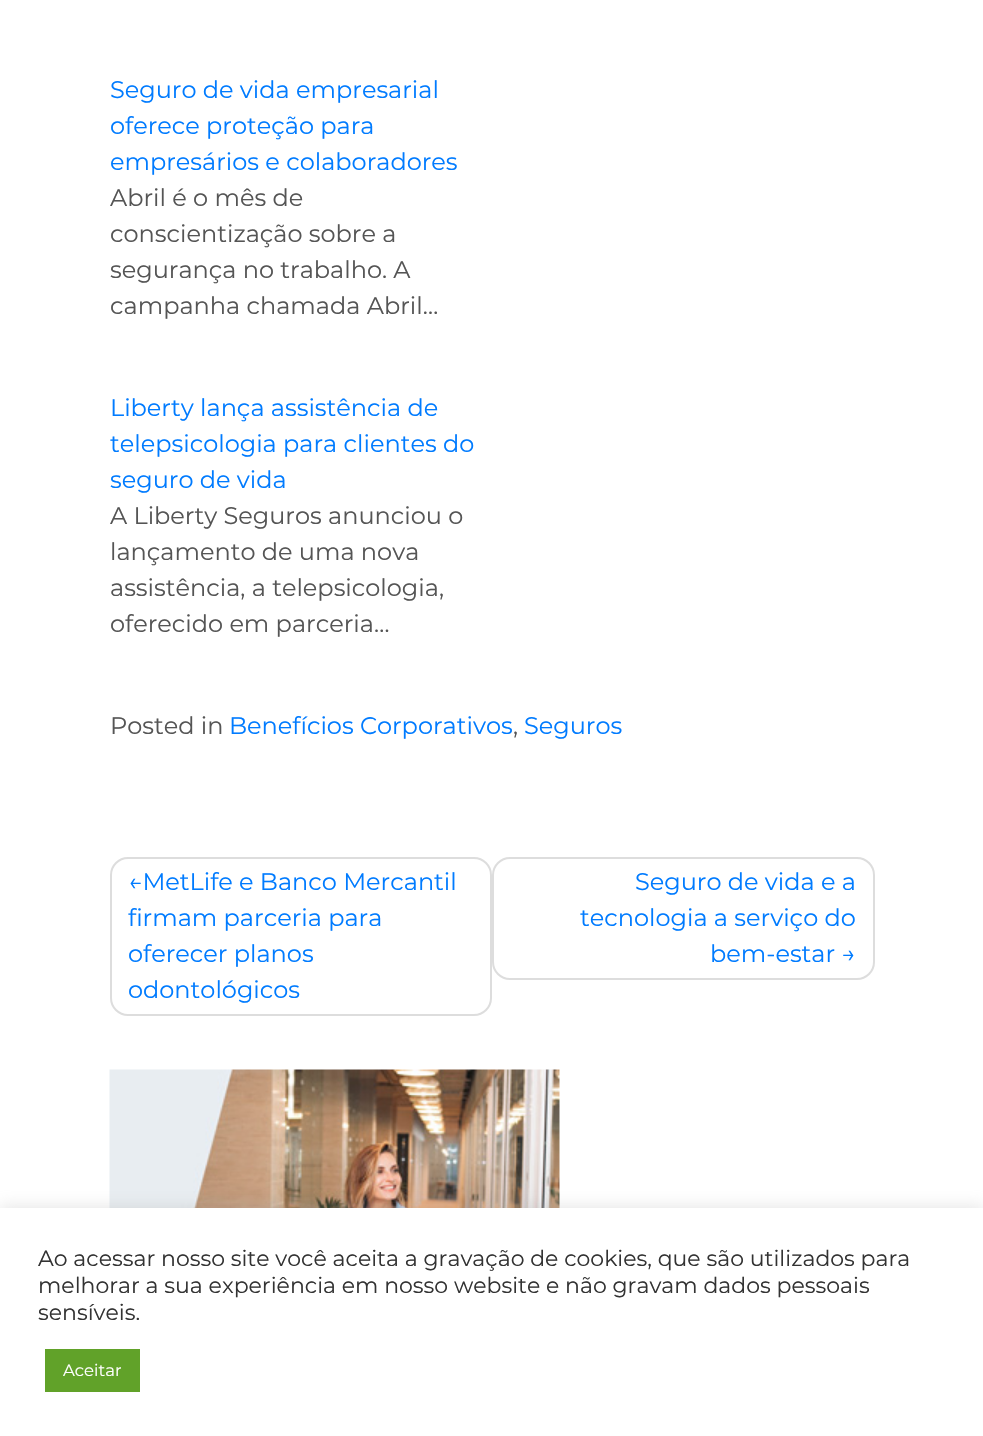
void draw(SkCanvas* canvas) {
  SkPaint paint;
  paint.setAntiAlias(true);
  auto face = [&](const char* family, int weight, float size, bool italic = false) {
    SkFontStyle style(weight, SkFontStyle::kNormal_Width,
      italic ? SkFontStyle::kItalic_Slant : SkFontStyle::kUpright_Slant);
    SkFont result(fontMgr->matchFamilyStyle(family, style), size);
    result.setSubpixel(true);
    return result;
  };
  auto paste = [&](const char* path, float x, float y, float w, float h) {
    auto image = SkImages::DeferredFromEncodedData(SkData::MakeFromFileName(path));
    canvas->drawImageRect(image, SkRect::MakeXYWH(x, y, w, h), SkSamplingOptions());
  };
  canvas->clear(0xffffffff);
  paint.setStroke(true);
  paint.setStrokeWidth(2);
  paint.setColor(0xffdddddd);
  canvas->drawRoundRect(SkRect::MakeXYWH(111, 858, 380, 157), 17, 17, paint);
  canvas->drawRoundRect(SkRect::MakeXYWH(493, 858, 381, 121), 17, 17, paint);
  paste("img/1.png", 109, 1069, 451, 139);
  paint.setStroke(false);
  paint.setColor(0x4dacabab);
  paint.setMaskFilter(SkMaskFilter::MakeBlur(kNormal_SkBlurStyle, 7.5f));
  canvas->drawRect(SkRect::MakeXYWH(0, 1206, 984, 230), paint);
  paint.setMaskFilter(nullptr);
  paint.setColor(0xffffffff);
  canvas->drawRect(SkRect::MakeXYWH(0, 1208, 983, 228), paint);
  paint.setColor(0xff61a229);
  canvas->drawRect(SkRect::MakeXYWH(45, 1349, 95, 43), paint);
  auto f0 = face("Montserrat", 400, 24);
  paint.setColor(0xff007bff);
  {
    const struct { const char* s; float x, y; } items[] = {
      {"Seguro de vida empresarial", 110, 98},
      {"oferece proteção para", 110, 134},
      {"empresários e colaboradores", 110, 170},
    };
    for (auto [s, x, y] : items) {
      canvas->drawString(s, x, y, f0, paint);
    }
  }
  paint.setColor(0xff555555);
  {
    const struct { const char* s; float x, y; } items[] = {
      {"Abril é o mês de", 110, 206},
      {"conscientização sobre a", 110, 242},
      {"segurança no trabalho. A", 110, 278},
      {"campanha chamada Abril…", 110, 314},
    };
    for (auto [s, x, y] : items) {
      canvas->drawString(s, x, y, f0, paint);
    }
  }
  paint.setColor(0xff007bff);
  {
    const struct { const char* s; float x, y; } items[] = {
      {"Liberty lança assistência de", 110, 416},
      {"telepsicologia para clientes do", 110, 452},
      {"seguro de vida", 110, 488},
    };
    for (auto [s, x, y] : items) {
      canvas->drawString(s, x, y, f0, paint);
    }
  }
  paint.setColor(0xff555555);
  {
    const struct { const char* s; float x, y; } items[] = {
      {"A Liberty Seguros anunciou o", 110, 524},
      {"lançamento de uma nova", 110, 560},
      {"assistência, a telepsicologia,", 110, 596},
      {"oferecido em parceria…", 110, 632},
      {"Posted in", 110, 734},
    };
    for (auto [s, x, y] : items) {
      canvas->drawString(s, x, y, f0, paint);
    }
  }
  paint.setColor(0xff007bff);
  canvas->drawString("Benefícios Corporativos", 229, 734, f0, paint);
  paint.setColor(0xff555555);
  canvas->drawString(",", 513, 734, f0, paint);
  paint.setColor(0xff007bff);
  {
    const struct { const char* s; float x, y; } items[] = {
      {"Seguros", 524, 734},
      {"←MetLife e Banco Mercantil", 128, 890},
      {"firmam parceria para", 128, 926},
      {"oferecer planos", 128, 962},
      {"odontológicos", 128, 998},
      {"Seguro de vida e a", 635, 890},
      {"tecnologia a serviço do", 580, 926},
      {"bem-estar →", 710, 962},
    };
    for (auto [s, x, y] : items) {
      canvas->drawString(s, x, y, f0, paint);
    }
  }
  auto f1 = face("Montserrat", 400, 22);
  paint.setColor(0xff333333);
  {
    const struct { const char* s; float x, y; } items[] = {
      {"Ao acessar nosso site você aceita a gravação de cookies, que são utilizados para", 38, 1266},
      {"melhorar a sua experiência em nosso website e não gravam dados pessoais", 38, 1293},
      {"sensíveis.", 38, 1320},
    };
    for (auto [s, x, y] : items) {
      canvas->drawString(s, x, y, f1, paint);
    }
  }
  auto f2 = face("Montserrat", 400, 16.5f);
  paint.setColor(0xffffffff);
  canvas->drawString("Aceitar", 63, 1376, f2, paint);
}
